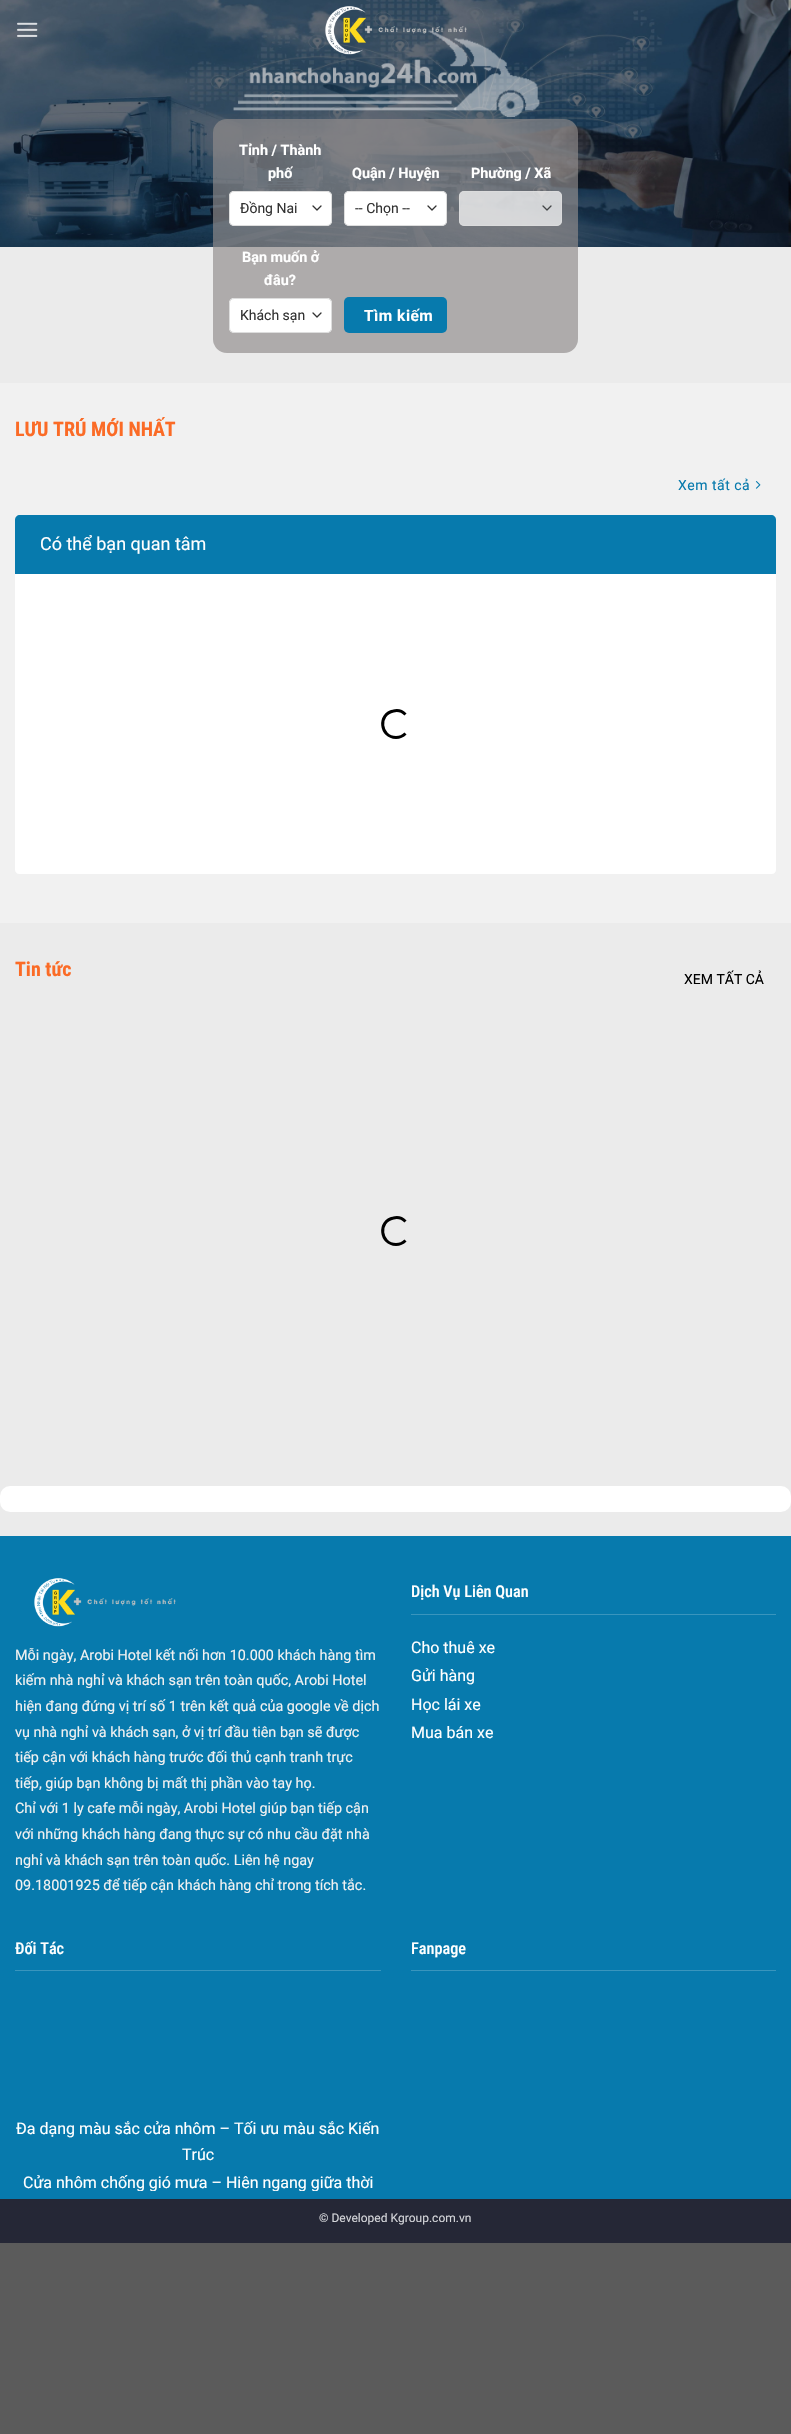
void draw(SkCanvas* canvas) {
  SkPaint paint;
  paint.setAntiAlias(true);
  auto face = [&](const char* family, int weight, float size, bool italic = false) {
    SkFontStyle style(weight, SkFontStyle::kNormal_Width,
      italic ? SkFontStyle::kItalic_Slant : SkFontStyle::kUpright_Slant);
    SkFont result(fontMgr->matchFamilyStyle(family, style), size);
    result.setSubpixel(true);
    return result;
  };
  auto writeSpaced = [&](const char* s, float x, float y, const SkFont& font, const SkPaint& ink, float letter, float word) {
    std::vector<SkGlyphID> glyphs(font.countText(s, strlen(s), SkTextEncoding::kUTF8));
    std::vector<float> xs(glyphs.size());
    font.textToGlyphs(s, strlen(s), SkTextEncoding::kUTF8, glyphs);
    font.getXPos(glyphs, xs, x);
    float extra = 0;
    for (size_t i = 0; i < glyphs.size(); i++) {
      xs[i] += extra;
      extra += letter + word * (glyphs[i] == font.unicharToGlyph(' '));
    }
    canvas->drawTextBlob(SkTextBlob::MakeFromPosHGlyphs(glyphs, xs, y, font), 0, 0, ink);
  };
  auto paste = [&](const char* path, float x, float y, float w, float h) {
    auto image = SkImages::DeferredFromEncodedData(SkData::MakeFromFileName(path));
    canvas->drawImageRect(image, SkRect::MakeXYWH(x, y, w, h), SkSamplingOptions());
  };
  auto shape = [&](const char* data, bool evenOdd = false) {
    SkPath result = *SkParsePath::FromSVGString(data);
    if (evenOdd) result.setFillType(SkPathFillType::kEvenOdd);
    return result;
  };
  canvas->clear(0xff5b5b5b);
  paint.setColor(0xffebebeb);
  canvas->drawRect(SkRect::MakeXYWH(0, 247, 791, 1289), paint);
  paste("img/3.png", 0, 0, 791, 247);
  paste("img/1.png", 17, 22, 21, 15);
  paste("img/2.png", 325, 6, 142, 49);
  paint.setColor(0xab8f8b8b);
  canvas->drawRoundRect(SkRect::MakeXYWH(213, 119, 365, 234), 14, 14, paint);
  paint.setColor(0xffffffff);
  canvas->drawRoundRect(SkRect::MakeXYWH(229, 191, 103, 35), 5, 5, paint);
  paint.setStroke(true);
  paint.setStrokeWidth(1.3f);
  paint.setStrokeCap(SkPaint::kRound_Cap);
  paint.setStrokeJoin(SkPaint::kRound_Join);
  paint.setColor(0xff333333);
  canvas->drawPath(shape("M313 206L317 210L321 206"), paint);
  paint.setStrokeWidth(1);
  paint.setStrokeCap(SkPaint::kButt_Cap);
  paint.setStrokeJoin(SkPaint::kMiter_Join);
  paint.setColor(0xffdddddd);
  canvas->drawRoundRect(SkRect::MakeXYWH(229.5f, 191.5f, 102, 34), 4.5f, 4.5f, paint);
  paint.setStroke(false);
  paint.setColor(0xffffffff);
  canvas->drawRoundRect(SkRect::MakeXYWH(344, 191, 103, 35), 5, 5, paint);
  paint.setStroke(true);
  paint.setStrokeWidth(1.3f);
  paint.setStrokeCap(SkPaint::kRound_Cap);
  paint.setStrokeJoin(SkPaint::kRound_Join);
  paint.setColor(0xff333333);
  canvas->drawPath(shape("M428 206L432 210L436 206"), paint);
  paint.setStrokeWidth(1);
  paint.setStrokeCap(SkPaint::kButt_Cap);
  paint.setStrokeJoin(SkPaint::kMiter_Join);
  paint.setColor(0xffdddddd);
  canvas->drawRoundRect(SkRect::MakeXYWH(344.5f, 191.5f, 102, 34), 4.5f, 4.5f, paint);
  paint.setStroke(false);
  paint.setColor(0xb3ffffff);
  canvas->drawRoundRect(SkRect::MakeXYWH(459, 191, 103, 35), 5, 5, paint);
  paint.setStroke(true);
  paint.setStrokeWidth(1.3f);
  paint.setStrokeCap(SkPaint::kRound_Cap);
  paint.setStrokeJoin(SkPaint::kRound_Join);
  paint.setColor(0xff434547);
  canvas->drawPath(shape("M543 206L547 210L551 206"), paint);
  paint.setStrokeWidth(1);
  paint.setStrokeCap(SkPaint::kButt_Cap);
  paint.setStrokeJoin(SkPaint::kMiter_Join);
  paint.setColor(0xb3dddddd);
  canvas->drawRoundRect(SkRect::MakeXYWH(459.5f, 191.5f, 102, 34), 4.5f, 4.5f, paint);
  paint.setStroke(false);
  paint.setColor(0xffffffff);
  canvas->drawRoundRect(SkRect::MakeXYWH(229, 298, 103, 35), 5, 5, paint);
  paint.setStroke(true);
  paint.setStrokeWidth(1.3f);
  paint.setStrokeCap(SkPaint::kRound_Cap);
  paint.setStrokeJoin(SkPaint::kRound_Join);
  paint.setColor(0xff333333);
  canvas->drawPath(shape("M313 313L317 317L321 313"), paint);
  paint.setStrokeWidth(1);
  paint.setStrokeCap(SkPaint::kButt_Cap);
  paint.setStrokeJoin(SkPaint::kMiter_Join);
  paint.setColor(0xffdddddd);
  canvas->drawRoundRect(SkRect::MakeXYWH(229.5f, 298.5f, 102, 34), 4.5f, 4.5f, paint);
  paint.setStroke(false);
  paint.setColor(0xff077aad);
  canvas->drawRoundRect(SkRect::MakeXYWH(344, 297, 103, 36), 5, 5, paint);
  paint.setColor(0xfff1f1f1);
  canvas->drawRect(SkRect::MakeXYWH(0, 383, 791, 540), paint);
  paste("img/4.png", 755, 481, 6, 8);
  paint.setColor(0xff077aad);
  canvas->drawPath(shape("M20 515H771C774 515 776 517 776 520V574H15V520C15 517 17 515 20 515Z"), paint);
  paint.setColor(0xffffffff);
  canvas->drawPath(shape("M15 574H776V870C776 872 774 874 772 874H19C17 874 15 872 15 870Z"), paint);
  paint.setStroke(true);
  paint.setStrokeWidth(3);
  paint.setColor(0xff000000);
  canvas->drawPath(shape("M405.5 733.5C403 736 399.5 737.5 396 737.5C380 737.5 377.5 714 393.5 711C397.5 710 402.5 711.5 405.5 714.5"), paint);
  canvas->drawPath(shape("M405.5 1240.5C403 1243 399.5 1244.5 396 1244.5C380 1244.5 377.5 1221 393.5 1218C397.5 1217 402.5 1218.5 405.5 1221.5"), paint);
  paint.setStroke(false);
  paint.setColor(0xff077aad);
  canvas->drawRect(SkRect::MakeXYWH(0, 1536, 791, 663), paint);
  paint.setColor(0xffffffff);
  canvas->drawRoundRect(SkRect::MakeXYWH(0, 1486, 791, 26), 10, 10, paint);
  paste("img/5.png", 34, 1578, 142, 49);
  {
    const struct { float x, y, w, h; SkColor color; } items[] = {
      {411, 1614, 365, 1, 0xff3995bd},
      {15, 1970, 366, 1, 0xff3995bd},
      {411, 1970, 365, 1, 0xff3995bd},
      {0, 2199, 791, 44, 0xff252736},
    };
    for (auto [x, y, w, h, color] : items) {
      paint.setColor(color);
      canvas->drawRect(SkRect::MakeXYWH(x, y, w, h), paint);
    }
  }
  auto f0 = face("Roboto", 700, 14.4f);
  paint.setColor(0xffffffff);
  canvas->drawString("Tỉnh / Thành", 239, 155, f0, paint);
  canvas->drawString("phố", 268, 178, f0, paint);
  auto f1 = face("Roboto", 400, 14);
  paint.setColor(0xff333333);
  canvas->drawString("Đồng Nai", 240, 213, f1, paint);
  paint.setColor(0xffffffff);
  canvas->drawString("Quận / Huyện", 352, 178, f0, paint);
  paint.setColor(0xff333333);
  canvas->drawString("-- Chọn --", 355, 213, f1, paint);
  paint.setColor(0xffffffff);
  {
    const struct { const char* s; float x, y; } items[] = {
      {"Phường / Xã", 471, 178},
      {"Bạn muốn ở", 242, 262},
      {"đâu?", 264, 285},
    };
    for (auto [s, x, y] : items) {
      canvas->drawString(s, x, y, f0, paint);
    }
  }
  paint.setColor(0xff333333);
  canvas->drawString("Khách sạn", 240, 320, f1, paint);
  auto f2 = face("Roboto", 700, 15.5f);
  paint.setColor(0xffffffff);
  writeSpaced("Tìm kiếm", 364, 321, f2, paint, 0.5f, 0);
  auto f3 = face("Roboto Condensed", 700, 20);
  paint.setColor(0xfffb6b26);
  canvas->drawString("LƯU TRÚ MỚI NHẤT", 15, 436, f3, paint);
  paint.setColor(0xff077aad);
  writeSpaced("Xem tất cả", 678, 490, f1, paint, 0.5f, 0);
  auto f4 = face("Roboto", 400, 18);
  paint.setColor(0xffffffff);
  canvas->drawString("Có thể bạn quan tâm", 40, 550, f4, paint);
  paint.setColor(0xfffb6b26);
  canvas->drawString("Tin tức", 15, 976, f3, paint);
  paint.setColor(0xff000000);
  canvas->drawString("XEM TẤT CẢ", 684, 984, f1, paint);
  auto f5 = face("Roboto", 400, 14.4f);
  paint.setColor(0xfff1f1f1);
  {
    const struct { const char* s; float x, y; } items[] = {
      {"Mỗi ngày, Arobi Hotel kết nối hơn 10.000 khách hàng tìm", 15, 1660},
      {"kiếm nhà nghỉ và khách sạn trên toàn quốc, Arobi Hotel", 15, 1685},
      {"hiện đang đứng vị trí số 1 trên kết quả của google về dịch", 15, 1711},
      {"vụ nhà nghỉ và khách sạn, ở vị trí đầu tiên bạn sẽ được", 15, 1737},
      {"tiếp cận với khách hàng trước đối thủ cạnh tranh trực", 15, 1762},
      {"tiếp, giúp bạn không bị mất thị phần vào tay họ.", 15, 1788},
      {"Chỉ với 1 ly cafe mỗi ngày, Arobi Hotel giúp bạn tiếp cận", 15, 1813},
      {"với những khách hàng đang thực sự có nhu cầu đặt nhà", 15, 1839},
      {"nghỉ và khách sạn trên toàn quốc. Liên hệ ngay", 15, 1865},
      {"09.18001925 để tiếp cận khách hàng chỉ trong tích tắc.", 15, 1890},
    };
    for (auto [s, x, y] : items) {
      canvas->drawString(s, x, y, f5, paint);
    }
  }
  auto f6 = face("Roboto Condensed", 500, 16.25f);
  paint.setColor(0xffffffff);
  canvas->drawString("Dịch Vụ Liên Quan", 411, 1597, f6, paint);
  auto f7 = face("Roboto", 400, 16);
  {
    const struct { const char* s; float x, y; } items[] = {
      {"Cho thuê xe", 411, 1653},
      {"Gửi hàng", 411, 1681},
      {"Học lái xe", 411, 1710},
      {"Mua bán xe", 411, 1738},
    };
    for (auto [s, x, y] : items) {
      canvas->drawString(s, x, y, f7, paint);
    }
  }
  canvas->drawString("Đối Tác", 15, 1954, f6, paint);
  canvas->drawString("Đa dạng màu sắc cửa nhôm – Tối ưu màu sắc Kiến", 16, 2134, f7, paint);
  canvas->drawString("Trúc", 182, 2160, f7, paint);
  canvas->save();
  canvas->clipRect(SkRect::MakeXYWH(15, 1991, 366, 200));
  canvas->drawString("Cửa nhôm chống gió mưa – Hiên ngang giữa thời", 23, 2188, f7, paint);
  canvas->restore();
  canvas->drawString("Fanpage", 411, 1954, f6, paint);
  auto f8 = face("Roboto", 400, 12);
  paint.setColor(0xffd4d5d9);
  canvas->drawString("© Developed Kgroup.com.vn", 319, 2222, f8, paint);
}
